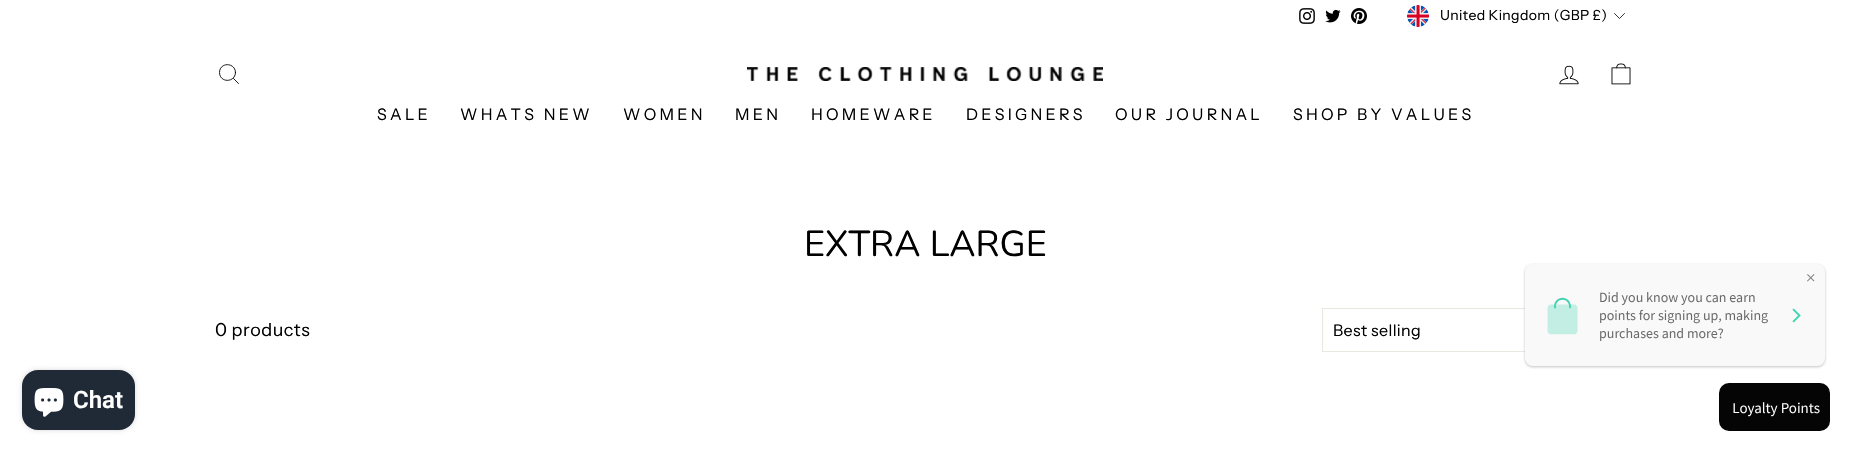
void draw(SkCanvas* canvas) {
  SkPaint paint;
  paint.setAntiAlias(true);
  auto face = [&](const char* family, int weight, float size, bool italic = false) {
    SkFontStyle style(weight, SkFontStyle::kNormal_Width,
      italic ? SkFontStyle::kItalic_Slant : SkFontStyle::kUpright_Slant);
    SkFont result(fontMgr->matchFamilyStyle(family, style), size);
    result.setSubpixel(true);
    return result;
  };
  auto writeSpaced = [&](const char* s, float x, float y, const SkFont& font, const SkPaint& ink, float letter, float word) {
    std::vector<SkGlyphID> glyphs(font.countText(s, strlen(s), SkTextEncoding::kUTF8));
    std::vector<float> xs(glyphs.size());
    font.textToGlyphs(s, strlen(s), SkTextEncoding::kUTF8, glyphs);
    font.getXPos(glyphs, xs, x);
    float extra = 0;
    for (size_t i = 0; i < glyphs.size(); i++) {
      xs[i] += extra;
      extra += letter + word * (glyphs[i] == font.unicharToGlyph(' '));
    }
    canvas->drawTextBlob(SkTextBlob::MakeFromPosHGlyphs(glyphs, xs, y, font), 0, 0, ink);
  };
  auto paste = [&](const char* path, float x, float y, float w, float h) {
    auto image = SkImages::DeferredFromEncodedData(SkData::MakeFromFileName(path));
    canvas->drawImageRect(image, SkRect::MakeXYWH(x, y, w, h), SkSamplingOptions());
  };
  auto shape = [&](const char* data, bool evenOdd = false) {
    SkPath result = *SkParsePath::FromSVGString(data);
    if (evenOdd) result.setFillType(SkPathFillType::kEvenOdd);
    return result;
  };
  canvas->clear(0xffffffff);
  paste("img/1.png", 1299, 8, 16, 16);
  paste("img/2.png", 1325, 9, 16, 14);
  paste("img/3.png", 1351, 8, 16, 16);
  paste("img/4.png", 1407, 5, 22, 22);
  paint.setStroke(true);
  paint.setStrokeWidth(0.8f);
  paint.setStrokeCap(SkPaint::kRound_Cap);
  paint.setStrokeJoin(SkPaint::kRound_Join);
  paint.setColor(0xff000000);
  canvas->drawPath(shape("M1614.5 13.5L1619.5 18.5L1624.5 13.5"), paint);
  paint.setStrokeWidth(0.9f);
  canvas->drawPath(shape("M235.5 72.5C235.5 83 219.5 83 219.5 72.5C219.5 62 235.5 62 235.5 72.5ZM238.5 83.5L233.5 78.5"), paint);
  paste("img/5.png", 747, 67, 356, 14);
  paste("img/6.png", 1559, 65, 20, 20);
  paste("img/7.png", 1611, 63, 20, 22);
  paint.setStrokeWidth(1);
  paint.setStrokeCap(SkPaint::kButt_Cap);
  paint.setStrokeJoin(SkPaint::kMiter_Join);
  paint.setColor(0xffe8e8e1);
  canvas->drawRect(SkRect::MakeXYWH(1322.5f, 308.5f, 312, 43), paint);
  paste("img/8.png", 1523, 263, 304, 106);
  paint.setStroke(false);
  paint.setColor(0x26000000);
  paint.setMaskFilter(SkMaskFilter::MakeBlur(kNormal_SkBlurStyle, 2.5f));
  canvas->drawRoundRect(SkRect::MakeXYWH(22, 370, 113, 60), 16, 16, paint);
  paint.setMaskFilter(nullptr);
  paint.setColor(0xff202a36);
  canvas->drawRoundRect(SkRect::MakeXYWH(22, 370, 113, 60), 16, 16, paint);
  paste("img/9.png", 34, 388, 30, 29);
  paste("img/10.png", 1719, 383, 111, 48);
  auto f0 = face("Instrument Sans", 400, 14);
  paint.setColor(0xff000000);
  writeSpaced("United Kingdom (GBP £)", 1440, 20, f0, paint, 0.35f, 0);
  auto f1 = face("Instrument Sans", 400, 16);
  {
    const struct { const char* s; float x, y; } items[] = {
      {"SALE", 377, 120},
      {"WHATS NEW", 460, 120},
      {"WOMEN", 623, 120},
      {"MEN", 735, 120},
      {"HOMEWARE", 811, 120},
      {"DESIGNERS", 966, 120},
      {"OUR JOURNAL", 1115, 120},
      {"SHOP BY VALUES", 1293, 120},
    };
    for (auto [s, x, y] : items) {
      writeSpaced(s, x, y, f1, paint, 3.25f, 0);
    }
  }
  auto f2 = face("Nunito", 400, 36);
  canvas->drawString("EXTRA LARGE", 804, 256, f2, paint);
  auto f3 = face("Instrument Sans", 400, 18);
  writeSpaced("0 products", 215, 336, f3, paint, 0.5f, 0);
  writeSpaced("Best selling", 1333, 336, f1, paint, 0.4f, 0);
  auto f4 = face("Roboto", 600, 24);
  paint.setColor(0xffffffff);
  canvas->drawString("Chat", 73, 408, f4, paint);
}
